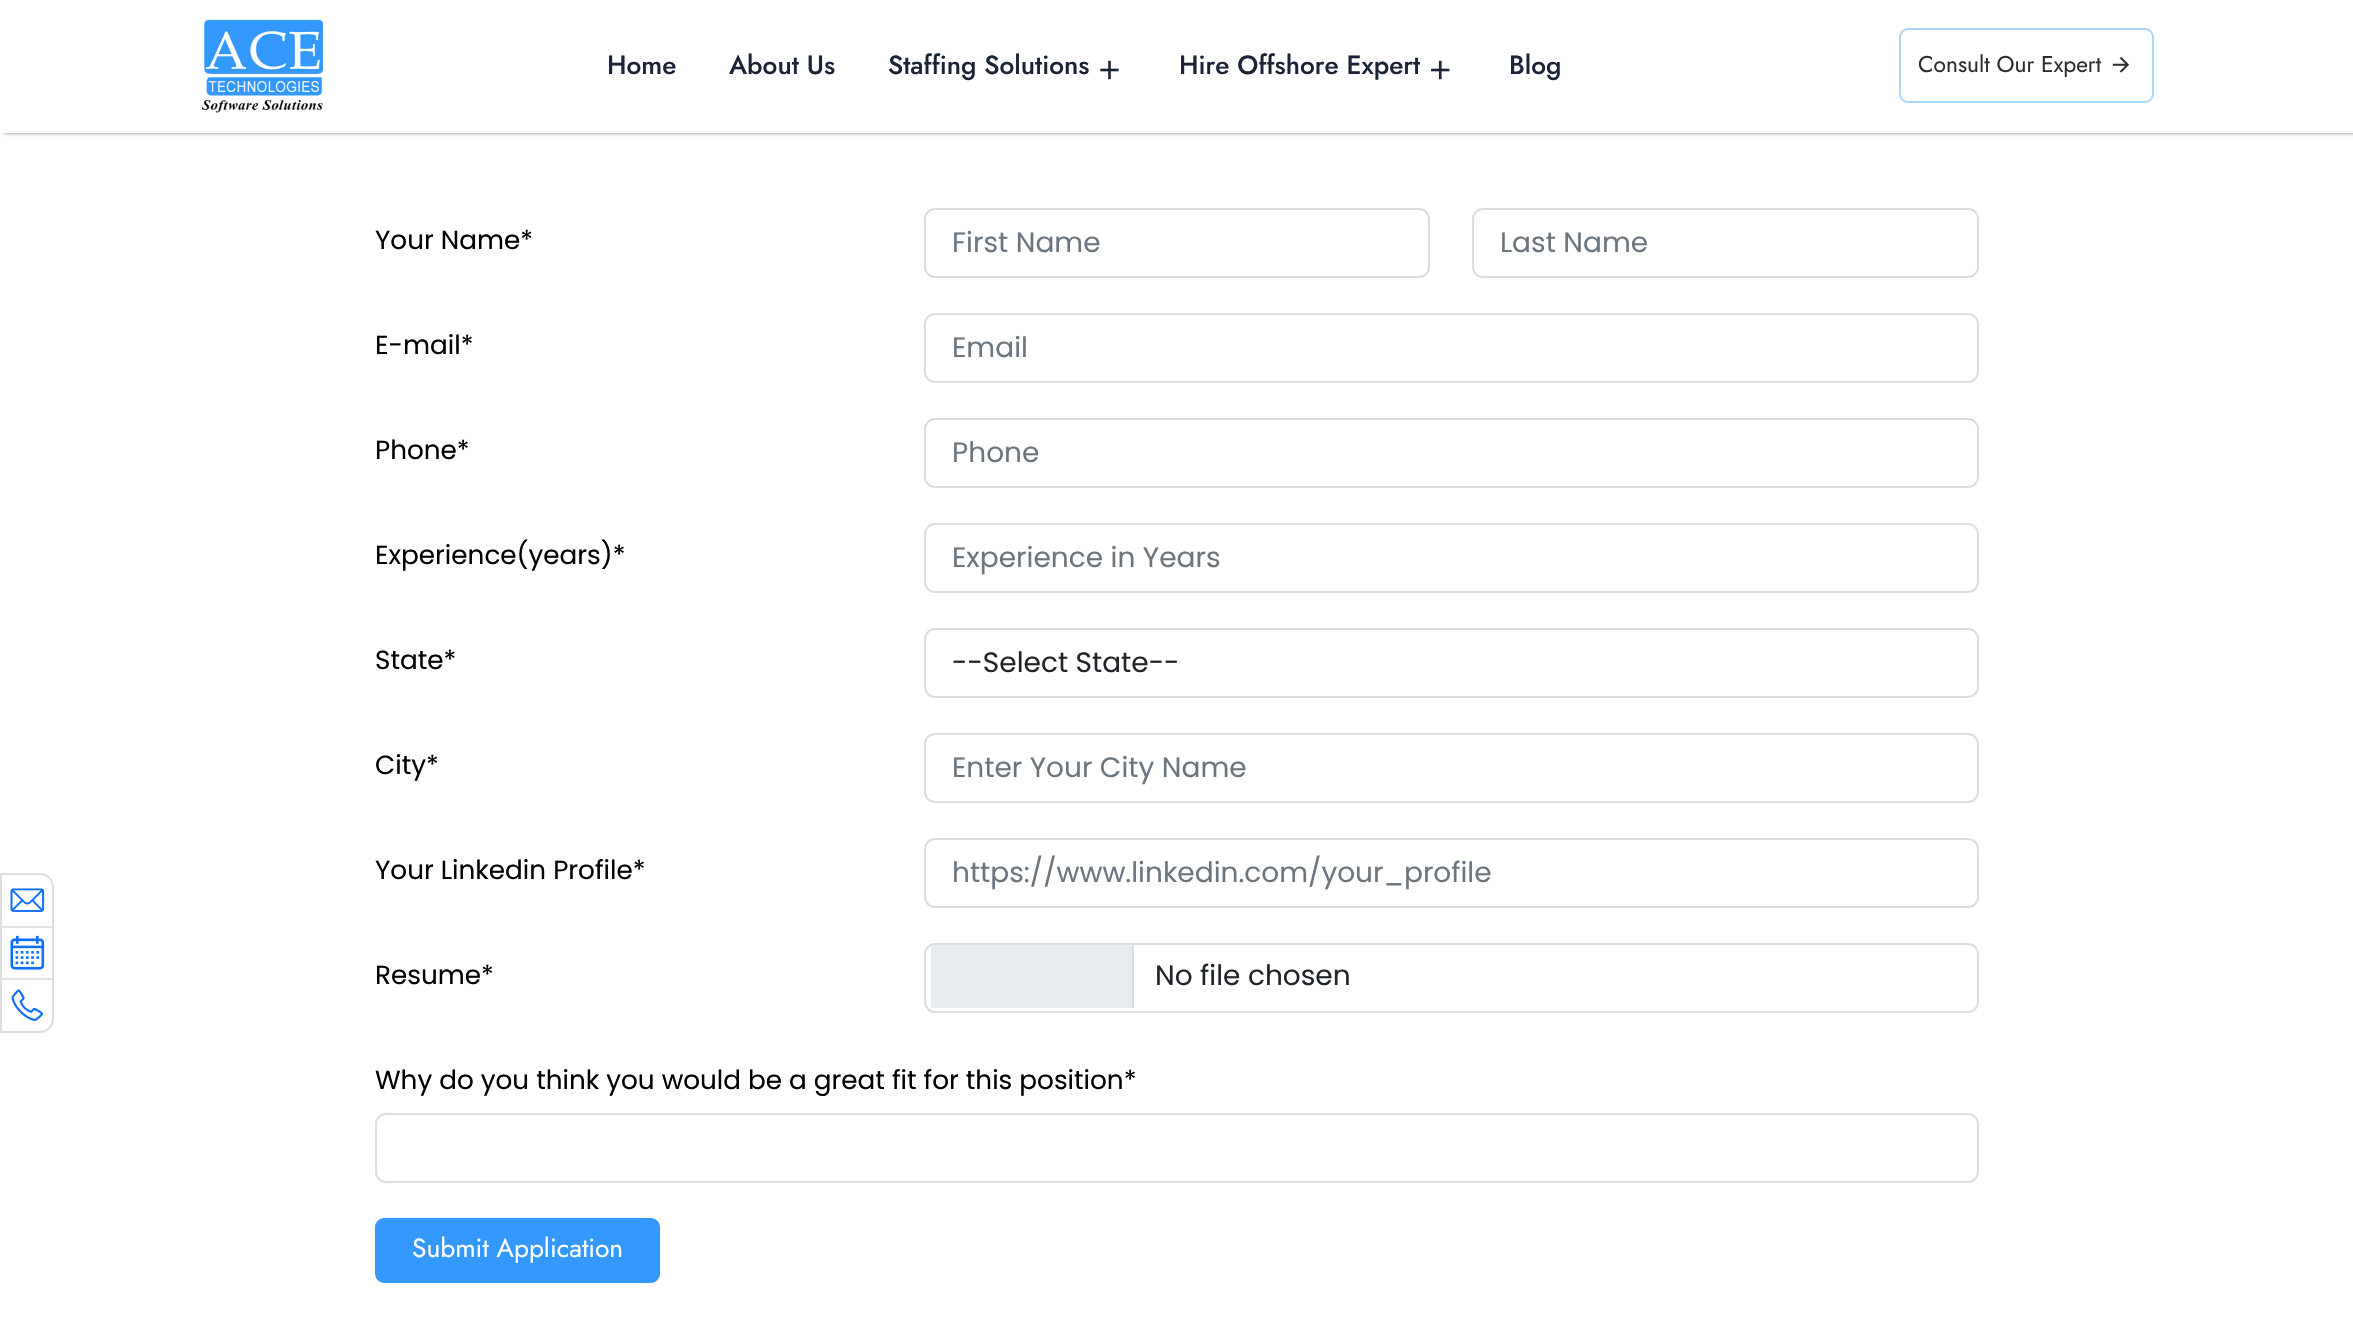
void draw(SkCanvas* canvas) {
  SkPaint paint;
  paint.setAntiAlias(true);
  auto face = [&](const char* family, int weight, float size, bool italic = false) {
    SkFontStyle style(weight, SkFontStyle::kNormal_Width,
      italic ? SkFontStyle::kItalic_Slant : SkFontStyle::kUpright_Slant);
    SkFont result(fontMgr->matchFamilyStyle(family, style), size);
    result.setSubpixel(true);
    return result;
  };
  auto paste = [&](const char* path, float x, float y, float w, float h) {
    auto image = SkImages::DeferredFromEncodedData(SkData::MakeFromFileName(path));
    canvas->drawImageRect(image, SkRect::MakeXYWH(x, y, w, h), SkSamplingOptions());
  };
  auto shape = [&](const char* data, bool evenOdd = false) {
    SkPath result = *SkParsePath::FromSVGString(data);
    if (evenOdd) result.setFillType(SkPathFillType::kEvenOdd);
    return result;
  };
  canvas->clear(0xffffffff);
  paint.setColor(0xff818181);
  paint.setMaskFilter(SkMaskFilter::MakeBlur(kNormal_SkBlurStyle, 2));
  canvas->drawRect(SkRect::MakeXYWH(4, 0, 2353, 133), paint);
  paint.setMaskFilter(nullptr);
  paint.setColor(0xffffffff);
  canvas->drawRect(SkRect::MakeXYWH(0, 0, 2353, 133), paint);
  paste("img/1.png", 201, 19, 123, 94);
  paste("img/2.png", 1100, 60, 19, 20);
  paste("img/3.png", 1431, 60, 19, 20);
  paint.setStroke(true);
  paint.setStrokeWidth(2);
  paint.setColor(0xffadd6ff);
  canvas->drawRoundRect(SkRect::MakeXYWH(1900, 29, 253, 73), 8, 8, paint);
  paste("img/4.png", 2112, 56, 18, 17);
  paint.setColor(0xffdddddd);
  canvas->drawPath(shape("M1 874H40C47 874 53 880 53 887V1019C53 1026 47 1032 40 1032H1Z"), paint);
  paste("img/5.png", 10, 888, 35, 24);
  paint.setStroke(false);
  paint.setColor(0xffdee2e6);
  canvas->drawRect(SkRect::MakeXYWH(2, 926, 51, 2), paint);
  paste("img/6.png", 10, 935, 35, 35);
  canvas->drawRect(SkRect::MakeXYWH(2, 978, 51, 2), paint);
  paste("img/7.png", 11, 989, 32, 32);
  paint.setStroke(true);
  paint.setColor(0xffdddddd);
  canvas->drawRoundRect(SkRect::MakeXYWH(925, 209, 504, 68), 10, 10, paint);
  canvas->drawRoundRect(SkRect::MakeXYWH(1473, 209, 505, 68), 10, 10, paint);
  canvas->drawRoundRect(SkRect::MakeXYWH(925, 314, 1053, 68), 10, 10, paint);
  canvas->drawRoundRect(SkRect::MakeXYWH(925, 419, 1053, 68), 10, 10, paint);
  canvas->drawRoundRect(SkRect::MakeXYWH(925, 524, 1053, 68), 10, 10, paint);
  canvas->drawRoundRect(SkRect::MakeXYWH(925, 629, 1053, 68), 10, 10, paint);
  canvas->drawRoundRect(SkRect::MakeXYWH(925, 734, 1053, 68), 10, 10, paint);
  canvas->drawRoundRect(SkRect::MakeXYWH(925, 839, 1053, 68), 10, 10, paint);
  canvas->drawRoundRect(SkRect::MakeXYWH(925, 944, 1053, 68), 10, 10, paint);
  canvas->save();
  canvas->clipPath(shape("M935 945H1969C1974 945 1978 949 1978 954V1003C1978 1008 1974 1012 1969 1012H935C930 1012 926 1008 926 1003V954C926 949 930 945 935 945Z"), true);
  paint.setStroke(false);
  paint.setColor(0xffe9ecef);
  canvas->drawRect(SkRect::MakeXYWH(931, 945, 201, 63), paint);
  canvas->restore();
  paint.setColor(0xffdddddd);
  canvas->drawRect(SkRect::MakeXYWH(1132, 945, 2, 63), paint);
  paint.setStroke(true);
  canvas->drawRoundRect(SkRect::MakeXYWH(376, 1114, 1602, 68), 10, 10, paint);
  paint.setStroke(false);
  paint.setColor(0xff3399ff);
  canvas->drawRoundRect(SkRect::MakeXYWH(376, 1219, 283, 63), 8, 8, paint);
  paint.setStroke(true);
  canvas->drawRoundRect(SkRect::MakeXYWH(376, 1219, 283, 63), 8, 8, paint);
  auto f0 = face("Jost", 500, 26.25f);
  paint.setStroke(false);
  paint.setColor(0xff1b2336);
  {
    const struct { const char* s; float x, y; } items[] = {
      {"Home", 607, 74},
      {"About Us", 729, 74},
      {"Staffing Solutions", 888, 74},
      {"Hire Offshore Expert", 1179, 74},
      {"Blog", 1509, 74},
    };
    for (auto [s, x, y] : items) {
      canvas->drawString(s, x, y, f0, paint);
    }
  }
  auto f1 = face("Jost", 400, 22.75f);
  paint.setColor(0xff2c2c2c);
  canvas->drawString("Consult Our Expert", 1918, 72, f1, paint);
  auto f2 = face("Poppins", 400, 26.25f);
  paint.setColor(0xff000000);
  canvas->drawString("Your Name*", 375, 249, f2, paint);
  auto f3 = face("Poppins", 400, 28);
  paint.setColor(0xff6c757d);
  canvas->drawString("First Name", 952, 252, f3, paint);
  canvas->drawString("Last Name", 1500, 252, f3, paint);
  paint.setColor(0xff000000);
  canvas->drawString("E-mail*", 375, 354, f2, paint);
  paint.setColor(0xff6c757d);
  canvas->drawString("Email", 952, 357, f3, paint);
  paint.setColor(0xff000000);
  canvas->drawString("Phone*", 375, 459, f2, paint);
  paint.setColor(0xff6c757d);
  canvas->drawString("Phone", 952, 462, f3, paint);
  paint.setColor(0xff000000);
  canvas->drawString("Experience(years)*", 375, 564, f2, paint);
  paint.setColor(0xff6c757d);
  canvas->drawString("Experience in Years", 952, 567, f3, paint);
  paint.setColor(0xff000000);
  canvas->drawString("State*", 375, 669, f2, paint);
  paint.setColor(0xff212529);
  canvas->drawString("--Select State--", 952, 672, f3, paint);
  paint.setColor(0xff000000);
  canvas->drawString("City*", 375, 774, f2, paint);
  paint.setColor(0xff6c757d);
  canvas->drawString("Enter Your City Name", 952, 777, f3, paint);
  paint.setColor(0xff000000);
  canvas->drawString("Your Linkedin Profile*", 375, 879, f2, paint);
  paint.setColor(0xff6c757d);
  canvas->drawString("https://www.linkedin.com/your_profile", 952, 882, f3, paint);
  paint.setColor(0xff000000);
  canvas->drawString("Resume*", 375, 984, f2, paint);
  paint.setColor(0xff212529);
  canvas->drawString("No file chosen", 1155, 985, f3, paint);
  paint.setColor(0xff000000);
  canvas->drawString("Why do you think you would be a great fit for this position*", 375, 1089, f2, paint);
  auto f4 = face("Jost", 400, 26.25f);
  paint.setColor(0xffffffff);
  canvas->drawString("Submit Application", 412, 1257, f4, paint);
}
